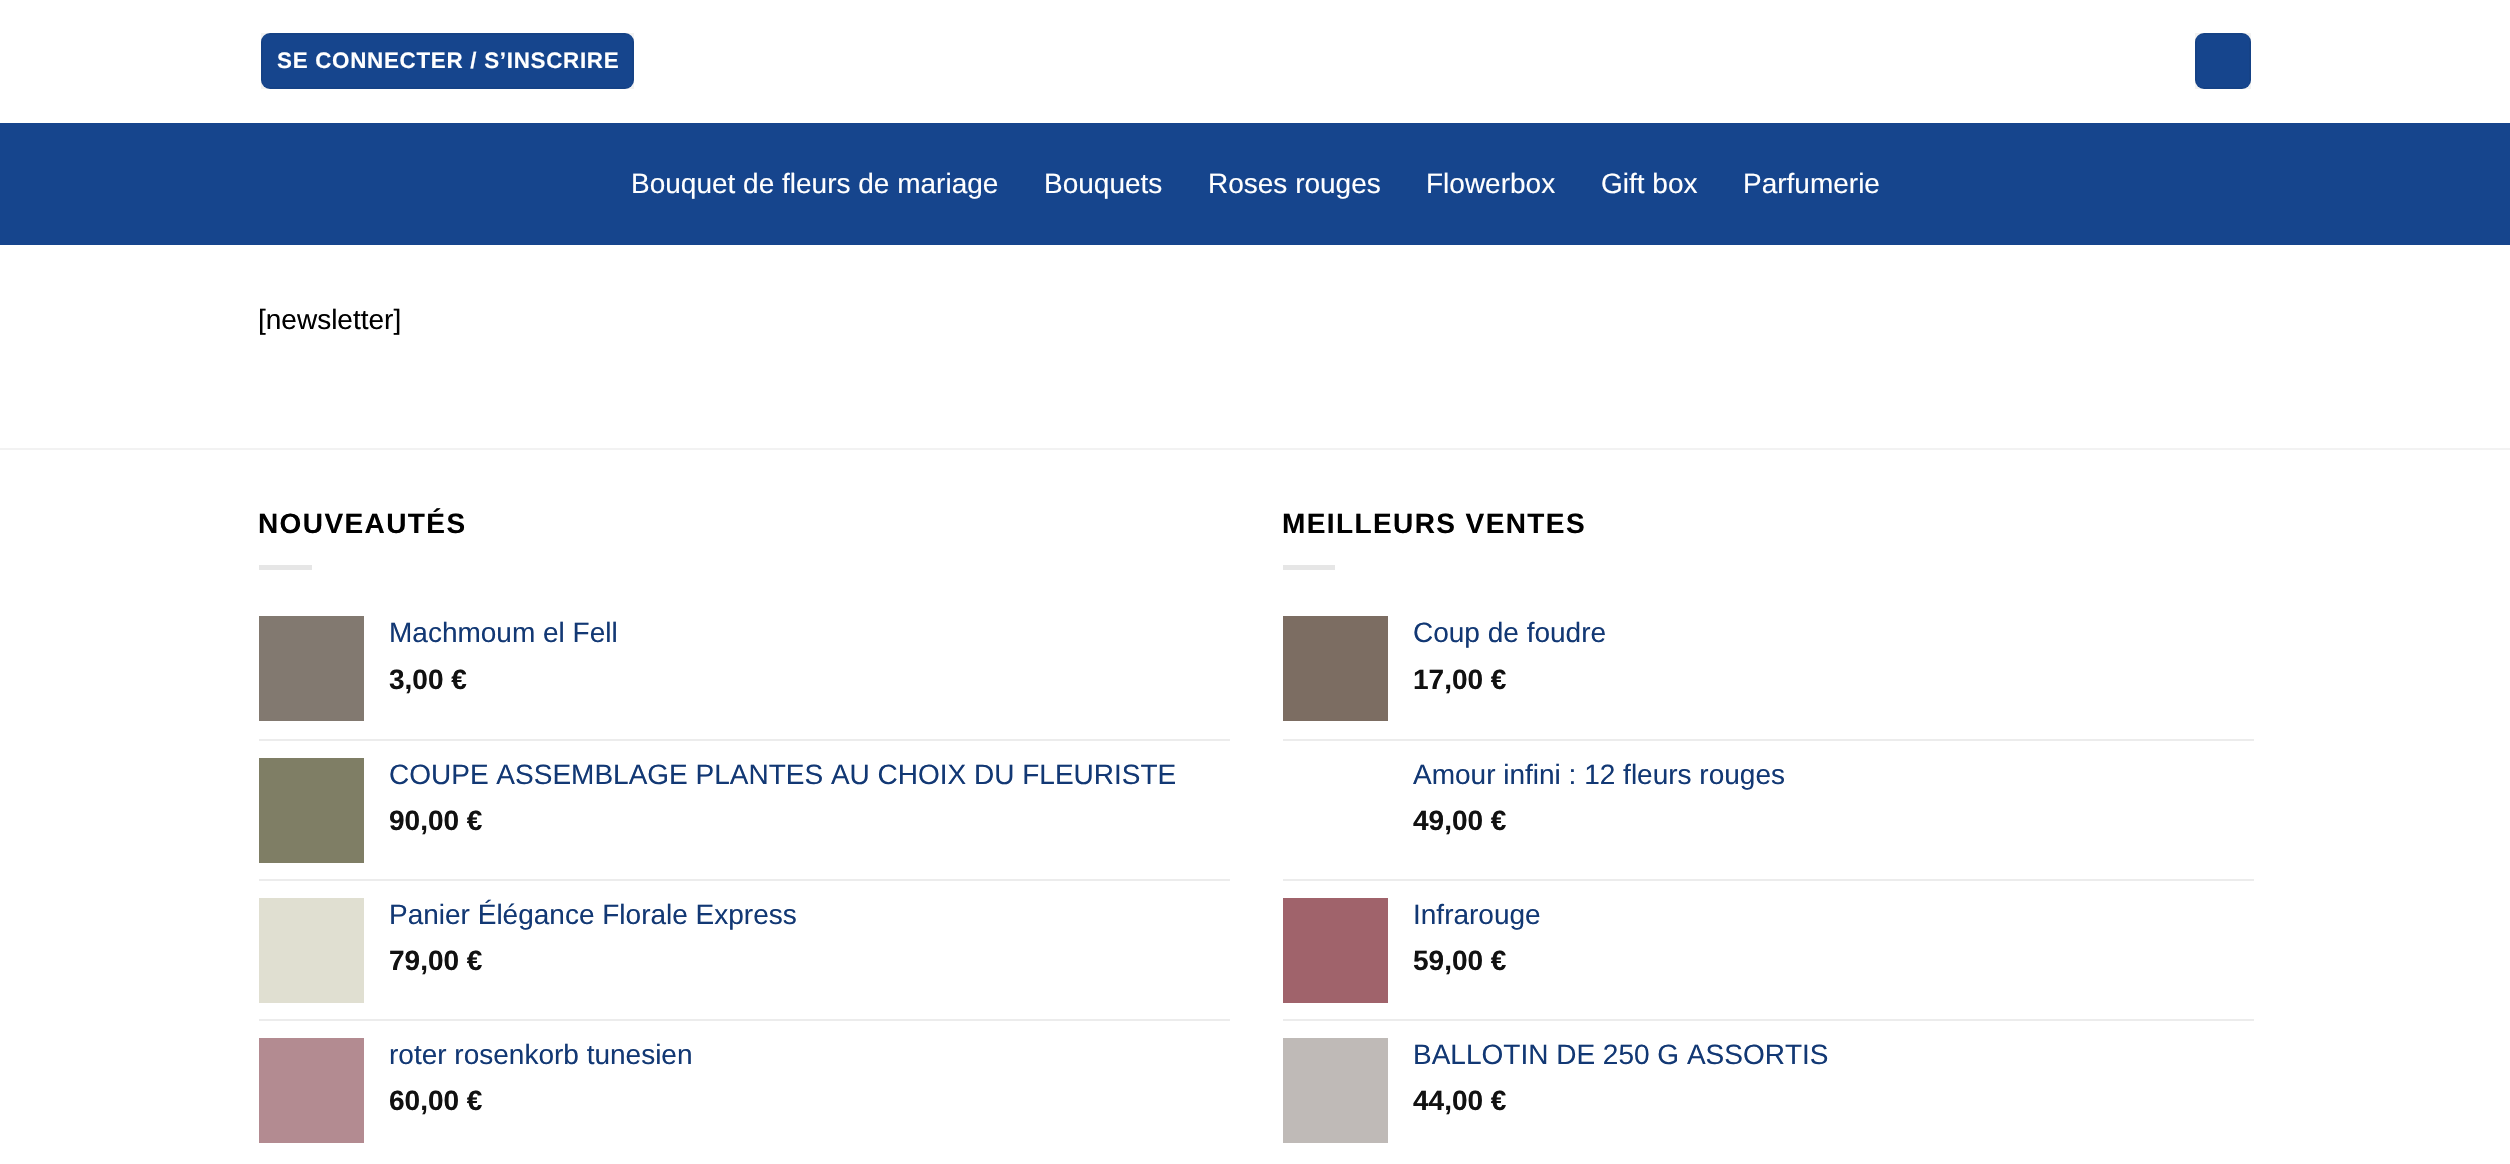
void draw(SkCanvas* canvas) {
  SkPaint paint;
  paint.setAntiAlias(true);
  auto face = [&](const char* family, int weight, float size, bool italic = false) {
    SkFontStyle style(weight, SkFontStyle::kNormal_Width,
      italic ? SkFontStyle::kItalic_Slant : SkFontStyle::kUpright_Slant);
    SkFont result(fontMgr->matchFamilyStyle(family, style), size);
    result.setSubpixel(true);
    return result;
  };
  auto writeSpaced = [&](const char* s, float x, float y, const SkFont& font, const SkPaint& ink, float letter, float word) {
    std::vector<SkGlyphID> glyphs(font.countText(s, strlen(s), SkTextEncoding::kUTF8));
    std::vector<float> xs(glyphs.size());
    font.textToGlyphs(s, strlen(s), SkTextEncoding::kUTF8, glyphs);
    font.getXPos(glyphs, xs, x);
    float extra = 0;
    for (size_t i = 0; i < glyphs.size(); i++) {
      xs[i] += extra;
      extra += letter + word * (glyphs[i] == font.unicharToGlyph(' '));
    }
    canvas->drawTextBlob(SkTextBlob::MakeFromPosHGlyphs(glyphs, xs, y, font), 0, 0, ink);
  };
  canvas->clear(0xffffffff);
  paint.setColor(0xff16458d);
  canvas->drawRoundRect(SkRect::MakeXYWH(261, 33, 373, 56), 9, 9, paint);
  paint.setStroke(true);
  paint.setStrokeWidth(2);
  paint.setColor(0x0d000000);
  canvas->drawRect(SkRect::MakeXYWH(262, 34, 371, 54), paint);
  paint.setStroke(false);
  paint.setColor(0xff16458d);
  canvas->drawRoundRect(SkRect::MakeXYWH(2195, 33, 56, 56), 9, 9, paint);
  paint.setStroke(true);
  paint.setColor(0x0d000000);
  canvas->drawRect(SkRect::MakeXYWH(2196, 34, 54, 54), paint);
  paint.setStroke(false);
  {
    const struct { float x, y, w, h; SkColor color; } items[] = {
      {0, 123, 2510, 122, 0xff16458d},
      {0, 448, 2510, 2, 0xfff2f2f2},
      {259, 565, 53, 5, 0xffe6e6e6},
      {259, 616, 105, 105, 0xff827970},
      {259, 739, 971, 2, 0xffececec},
      {259, 758, 105, 105, 0xff7f7e65},
      {259, 879, 971, 2, 0xffececec},
      {259, 898, 105, 105, 0xffe0dfd1},
      {259, 1019, 971, 2, 0xffececec},
      {259, 1038, 105, 105, 0xffb38b91},
      {1283, 565, 52, 5, 0xffe6e6e6},
      {1283, 616, 105, 105, 0xff7c6d62},
      {1283, 739, 971, 2, 0xffececec},
      {1283, 879, 971, 2, 0xffececec},
      {1283, 898, 105, 105, 0xffa0636b},
      {1283, 1019, 971, 2, 0xffececec},
      {1283, 1038, 105, 105, 0xffbfbab7},
    };
    for (auto [x, y, w, h, color] : items) {
      paint.setColor(color);
      canvas->drawRect(SkRect::MakeXYWH(x, y, w, h), paint);
    }
  }
  auto f0 = face("Liberation Sans", 700, 22.4f);
  paint.setColor(0xffffffff);
  writeSpaced("SE CONNECTER / S’INSCRIRE", 277, 68, f0, paint, 0.7f, 0);
  auto f1 = face("Liberation Sans", 400, 28);
  {
    const struct { const char* s; float x, y; } items[] = {
      {"Bouquet de fleurs de mariage", 631, 193},
      {"Bouquets", 1044, 193},
      {"Roses rouges", 1208, 193},
      {"Flowerbox", 1426, 193},
      {"Gift box", 1601, 193},
      {"Parfumerie", 1743, 193},
    };
    for (auto [s, x, y] : items) {
      canvas->drawString(s, x, y, f1, paint);
    }
  }
  paint.setColor(0xff000000);
  canvas->drawString("[newsletter]", 258, 329, f1, paint);
  auto f2 = face("Liberation Sans", 700, 28);
  writeSpaced("NOUVEAUTÉS", 258, 533, f2, paint, 1.4f, 0);
  paint.setColor(0xff123874);
  canvas->drawString("Machmoum el Fell", 389, 642, f1, paint);
  paint.setColor(0xff111111);
  canvas->drawString("3,00 €", 389, 689, f2, paint);
  paint.setColor(0xff123874);
  canvas->drawString("COUPE ASSEMBLAGE PLANTES AU CHOIX DU FLEURISTE", 389, 784, f1, paint);
  paint.setColor(0xff111111);
  canvas->drawString("90,00 €", 389, 830, f2, paint);
  paint.setColor(0xff123874);
  canvas->drawString("Panier Élégance Florale Express", 389, 924, f1, paint);
  paint.setColor(0xff111111);
  canvas->drawString("79,00 €", 389, 970, f2, paint);
  paint.setColor(0xff123874);
  canvas->drawString("roter rosenkorb tunesien", 389, 1064, f1, paint);
  paint.setColor(0xff111111);
  canvas->drawString("60,00 €", 389, 1110, f2, paint);
  paint.setColor(0xff000000);
  writeSpaced("MEILLEURS VENTES", 1282, 533, f2, paint, 1.4f, 0);
  paint.setColor(0xff123874);
  canvas->drawString("Coup de foudre", 1413, 642, f1, paint);
  paint.setColor(0xff111111);
  canvas->drawString("17,00 €", 1413, 689, f2, paint);
  paint.setColor(0xff123874);
  canvas->drawString("Amour infini : 12 fleurs rouges", 1413, 784, f1, paint);
  paint.setColor(0xff111111);
  canvas->drawString("49,00 €", 1413, 830, f2, paint);
  paint.setColor(0xff123874);
  canvas->drawString("Infrarouge", 1413, 924, f1, paint);
  paint.setColor(0xff111111);
  canvas->drawString("59,00 €", 1413, 970, f2, paint);
  paint.setColor(0xff123874);
  canvas->drawString("BALLOTIN DE 250 G ASSORTIS", 1413, 1064, f1, paint);
  paint.setColor(0xff111111);
  canvas->drawString("44,00 €", 1413, 1110, f2, paint);
}
